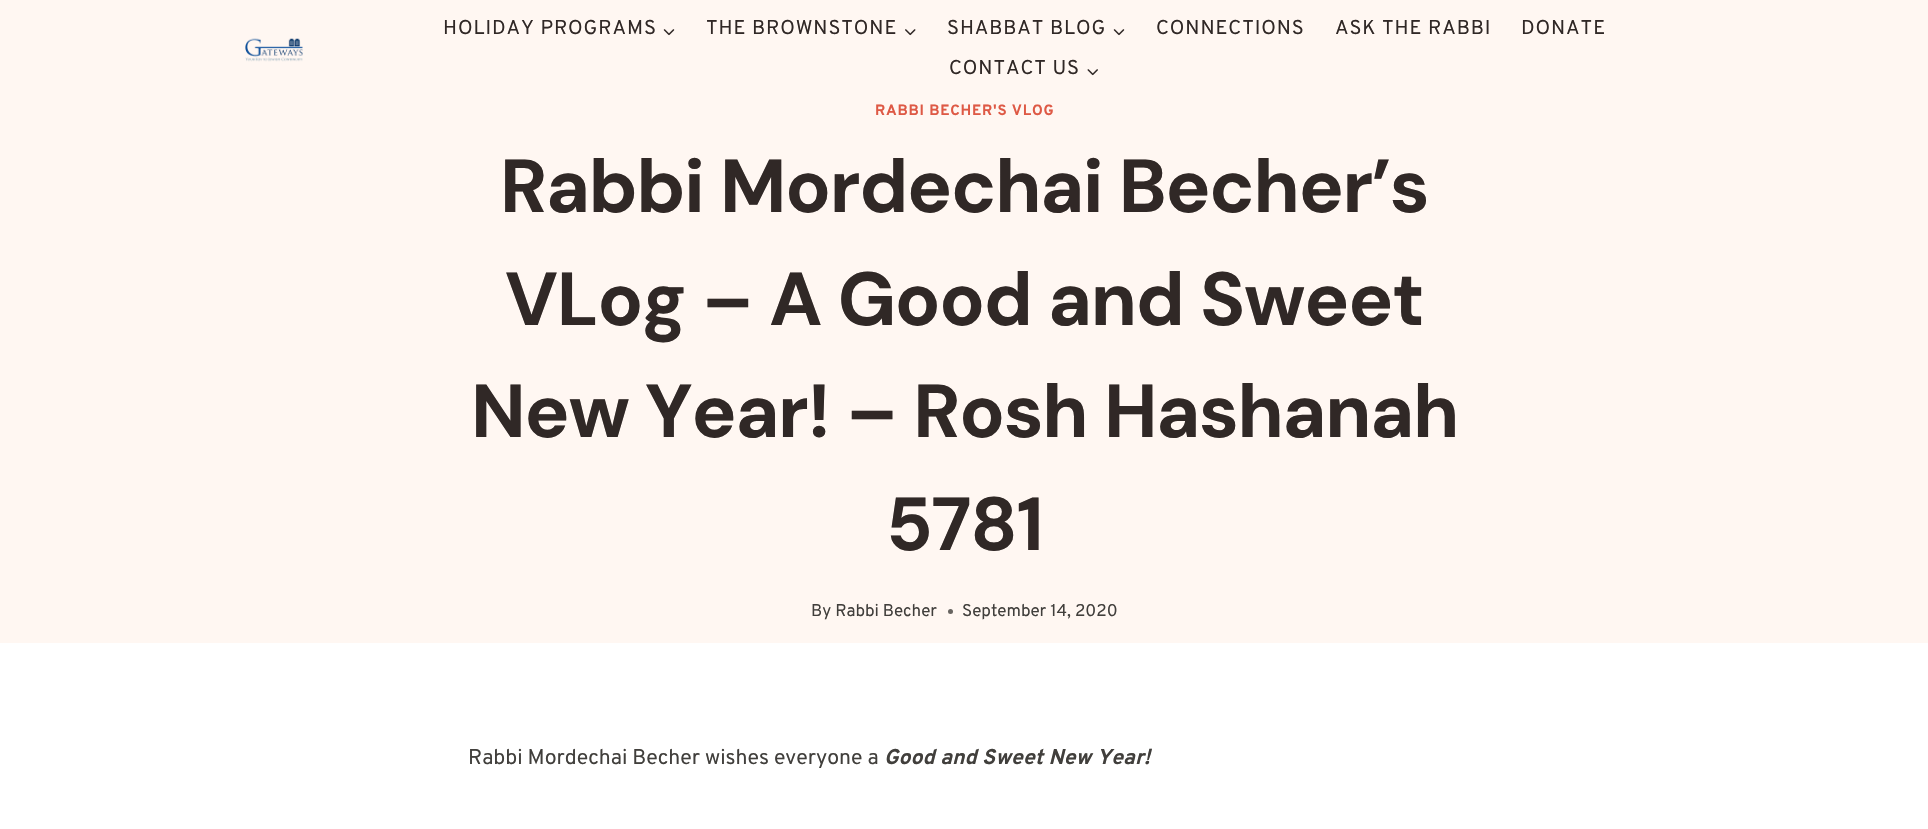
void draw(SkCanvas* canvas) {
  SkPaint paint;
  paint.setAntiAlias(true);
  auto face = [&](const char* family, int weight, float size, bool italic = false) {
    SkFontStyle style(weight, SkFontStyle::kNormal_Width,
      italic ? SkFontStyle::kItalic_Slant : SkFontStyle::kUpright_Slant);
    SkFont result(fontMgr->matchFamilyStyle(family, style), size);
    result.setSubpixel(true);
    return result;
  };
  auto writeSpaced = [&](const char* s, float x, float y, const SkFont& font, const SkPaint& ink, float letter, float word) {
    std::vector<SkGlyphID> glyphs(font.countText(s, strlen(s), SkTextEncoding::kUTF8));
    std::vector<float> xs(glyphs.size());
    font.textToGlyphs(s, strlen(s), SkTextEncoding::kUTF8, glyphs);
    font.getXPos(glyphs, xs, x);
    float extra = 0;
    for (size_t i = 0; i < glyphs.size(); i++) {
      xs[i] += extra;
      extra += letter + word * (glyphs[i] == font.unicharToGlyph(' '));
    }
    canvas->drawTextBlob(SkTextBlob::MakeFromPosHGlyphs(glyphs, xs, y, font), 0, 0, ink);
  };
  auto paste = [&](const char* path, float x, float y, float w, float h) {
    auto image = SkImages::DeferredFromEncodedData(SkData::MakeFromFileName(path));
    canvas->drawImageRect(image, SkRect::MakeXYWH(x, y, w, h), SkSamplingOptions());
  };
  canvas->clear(0xffffffff);
  paint.setColor(0xfffff7f2);
  canvas->drawRect(SkRect::MakeXYWH(0, 0, 1928, 643), paint);
  paste("img/1.png", 245, 38, 58, 24);
  paste("img/2.png", 663, 29, 12, 7);
  paste("img/3.png", 905, 29, 11, 7);
  paste("img/2.png", 1113, 29, 12, 7);
  paste("img/4.png", 1087, 69, 11, 7);
  paint.setColor(0xff676460);
  canvas->drawCircle(950.5f, 611.5f, 2.5f, paint);
  auto f0 = face("Overpass", 400, 20);
  paint.setColor(0xff302826);
  {
    const struct { const char* s; float x, y; } items[] = {
      {"HOLIDAY PROGRAMS", 443, 34},
      {"THE BROWNSTONE", 706, 34},
      {"SHABBAT BLOG", 947, 34},
      {"CONNECTIONS", 1156, 34},
      {"ASK THE RABBI", 1335, 34},
      {"DONATE", 1521, 34},
      {"CONTACT US", 949, 74},
    };
    for (auto [s, x, y] : items) {
      writeSpaced(s, x, y, f0, paint, 0.9f, 0);
    }
  }
  auto f1 = face("Overpass", 700, 14.9f);
  paint.setColor(0xffde5945);
  writeSpaced("RABBI BECHER'S VLOG", 875, 115, f1, paint, 0.75f, 0);
  auto f2 = face("DM Sans", 700, 75);
  paint.setColor(0xff302826);
  {
    const struct { const char* s; float x, y; } items[] = {
      {"Rabbi Mordechai Becher’s", 500, 212},
      {"VLog – A Good and Sweet", 505, 325},
      {"New Year! – Rosh Hashanah", 471, 437},
      {"5781", 886, 550},
    };
    for (auto [s, x, y] : items) {
      writeSpaced(s, x, y, f2, paint, -1.25f, 0);
    }
  }
  auto f3 = face("Overpass", 400, 17);
  paint.setColor(0xff413f3c);
  canvas->drawString("By Rabbi Becher", 811, 616, f3, paint);
  canvas->drawString("September 14, 2020", 962, 616, f3, paint);
  auto f4 = face("Overpass", 400, 21.25f);
  canvas->drawString("Rabbi Mordechai Becher wishes everyone a", 468, 764, f4, paint);
  auto f5 = face("Overpass", 700, 21.25f, true);
  canvas->drawString("Good and Sweet New Year!", 884, 764, f5, paint);
}
